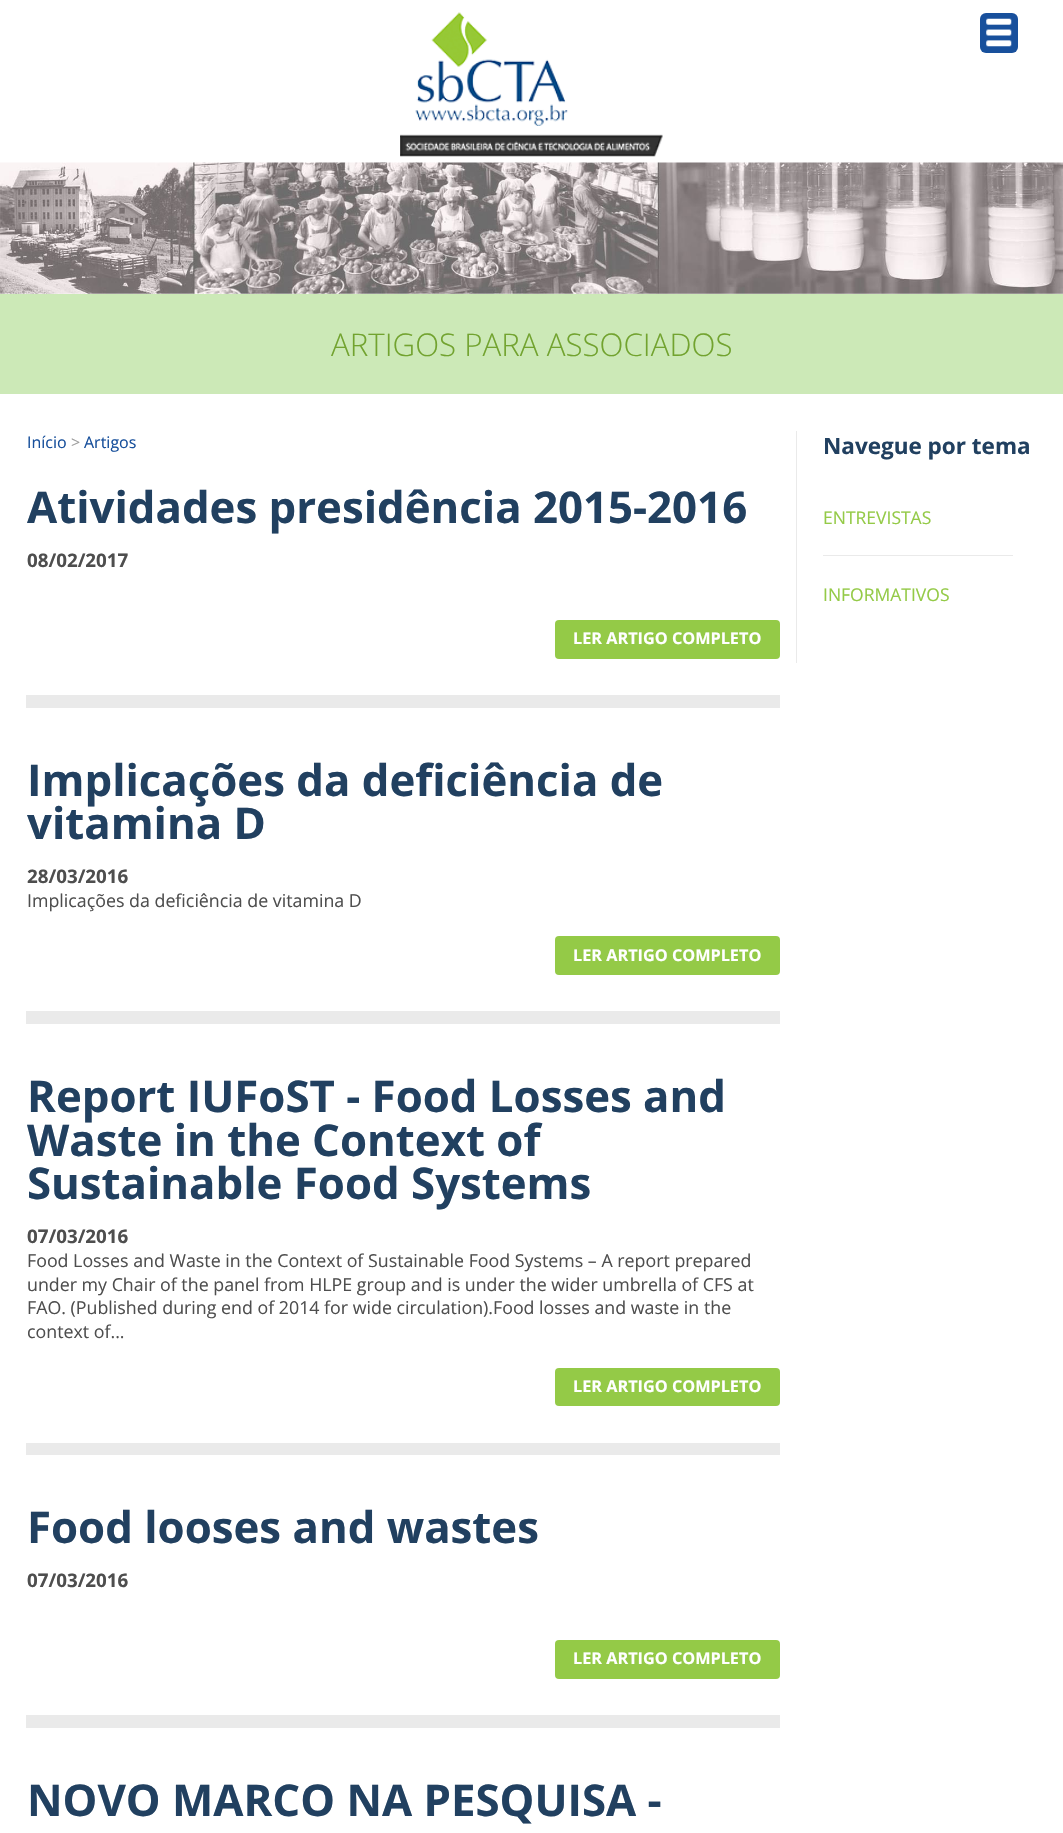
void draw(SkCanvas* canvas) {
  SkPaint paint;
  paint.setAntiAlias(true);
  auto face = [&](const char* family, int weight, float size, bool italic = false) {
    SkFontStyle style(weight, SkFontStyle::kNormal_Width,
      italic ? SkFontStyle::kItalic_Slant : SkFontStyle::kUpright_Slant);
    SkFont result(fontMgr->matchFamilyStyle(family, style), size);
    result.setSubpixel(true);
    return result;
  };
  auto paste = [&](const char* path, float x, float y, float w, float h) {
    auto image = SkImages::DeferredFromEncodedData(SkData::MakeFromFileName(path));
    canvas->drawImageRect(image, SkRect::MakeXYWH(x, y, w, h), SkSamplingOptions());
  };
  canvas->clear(0xffffffff);
  paste("img/1.png", 400, 12, 263, 145);
  paint.setColor(0xff18509c);
  canvas->drawRoundRect(SkRect::MakeXYWH(980, 13, 38, 40), 6, 6, paint);
  paste("img/2.png", 986, 18, 26, 29);
  paste("img/3.png", 0, 162, 1063, 132);
  paint.setColor(0xffcce9b7);
  canvas->drawRect(SkRect::MakeXYWH(0, 294, 1063, 100), paint);
  paint.setColor(0xffeaeaea);
  canvas->drawRect(SkRect::MakeXYWH(26, 695, 754, 13), paint);
  paint.setColor(0xff94ca47);
  canvas->drawRoundRect(SkRect::MakeXYWH(555, 620, 225, 39), 4, 4, paint);
  paint.setColor(0xffeaeaea);
  canvas->drawRect(SkRect::MakeXYWH(26, 1011, 754, 13), paint);
  paint.setColor(0xff94ca47);
  canvas->drawRoundRect(SkRect::MakeXYWH(555, 936, 225, 39), 4, 4, paint);
  paint.setColor(0xffeaeaea);
  canvas->drawRect(SkRect::MakeXYWH(26, 1443, 754, 12), paint);
  paint.setColor(0xff94ca47);
  canvas->drawRoundRect(SkRect::MakeXYWH(555, 1368, 225, 38), 4, 4, paint);
  paint.setColor(0xffeaeaea);
  canvas->drawRect(SkRect::MakeXYWH(26, 1715, 754, 13), paint);
  paint.setColor(0xff94ca47);
  canvas->drawRoundRect(SkRect::MakeXYWH(555, 1640, 225, 39), 4, 4, paint);
  paint.setColor(0xffeaeaea);
  canvas->drawRect(SkRect::MakeXYWH(796, 431, 1, 232), paint);
  canvas->drawRect(SkRect::MakeXYWH(823, 555, 190, 1), paint);
  auto f0 = face("Open Sans", 300, 31.25f);
  paint.setColor(0xff72a32f);
  canvas->drawString("ARTIGOS PARA ASSOCIADOS", 331, 356, f0, paint);
  auto f1 = face("Open Sans", 400, 16);
  paint.setColor(0xff18509c);
  canvas->drawString("Início", 27, 448, f1, paint);
  paint.setColor(0xff9e9e9e);
  canvas->drawString(">", 71, 448, f1, paint);
  paint.setColor(0xff18509c);
  canvas->drawString("Artigos", 84, 448, f1, paint);
  auto f2 = face("Open Sans", 700, 43.75f);
  paint.setColor(0xff214060);
  canvas->drawString("Atividades presidência 2015-2016", 27, 523, f2, paint);
  auto f3 = face("Open Sans", 700, 18.75f);
  paint.setColor(0xff4e4e4e);
  canvas->drawString("08/02/2017", 27, 567, f3, paint);
  auto f4 = face("Open Sans", 700, 16.25f);
  paint.setColor(0xffffffff);
  canvas->drawString("LER ARTIGO COMPLETO", 573, 644, f4, paint);
  paint.setColor(0xff214060);
  canvas->drawString("Implicações da deficiência de", 27, 796, f2, paint);
  canvas->drawString("vitamina D", 27, 839, f2, paint);
  paint.setColor(0xff4e4e4e);
  canvas->drawString("28/03/2016", 27, 883, f3, paint);
  auto f5 = face("Open Sans", 400, 17.8f);
  canvas->drawString("Implicações da deficiência de vitamina D", 27, 907, f5, paint);
  paint.setColor(0xffffffff);
  canvas->drawString("LER ARTIGO COMPLETO", 573, 961, f4, paint);
  paint.setColor(0xff214060);
  {
    const struct { const char* s; float x, y; } items[] = {
      {"Report IUFoST - Food Losses and", 27, 1112},
      {"Waste in the Context of", 27, 1156},
      {"Sustainable Food Systems", 27, 1199},
    };
    for (auto [s, x, y] : items) {
      canvas->drawString(s, x, y, f2, paint);
    }
  }
  paint.setColor(0xff4e4e4e);
  canvas->drawString("07/03/2016", 27, 1243, f3, paint);
  {
    const struct { const char* s; float x, y; } items[] = {
      {"Food Losses and Waste in the Context of Sustainable Food Systems – A report prepared", 27, 1267},
      {"under my Chair of the panel from HLPE group and is under the wider umbrella of CFS at", 27, 1291},
      {"FAO. (Published during end of 2014 for wide circulation).Food losses and waste in the", 27, 1314},
      {"context of...", 27, 1338},
    };
    for (auto [s, x, y] : items) {
      canvas->drawString(s, x, y, f5, paint);
    }
  }
  paint.setColor(0xffffffff);
  canvas->drawString("LER ARTIGO COMPLETO", 573, 1392, f4, paint);
  paint.setColor(0xff214060);
  canvas->drawString("Food looses and wastes", 27, 1543, f2, paint);
  paint.setColor(0xff4e4e4e);
  canvas->drawString("07/03/2016", 27, 1587, f3, paint);
  paint.setColor(0xffffffff);
  canvas->drawString("LER ARTIGO COMPLETO", 573, 1664, f4, paint);
  paint.setColor(0xff214060);
  canvas->drawString("NOVO MARCO NA PESQUISA -", 27, 1816, f2, paint);
  auto f6 = face("Open Sans", 700, 22.5f);
  canvas->drawString("Navegue por tema", 823, 454, f6, paint);
  auto f7 = face("Open Sans", 400, 17.5f);
  paint.setColor(0xff94ca47);
  canvas->drawString("ENTREVISTAS", 823, 524, f7, paint);
  canvas->drawString("INFORMATIVOS", 823, 601, f7, paint);
}
